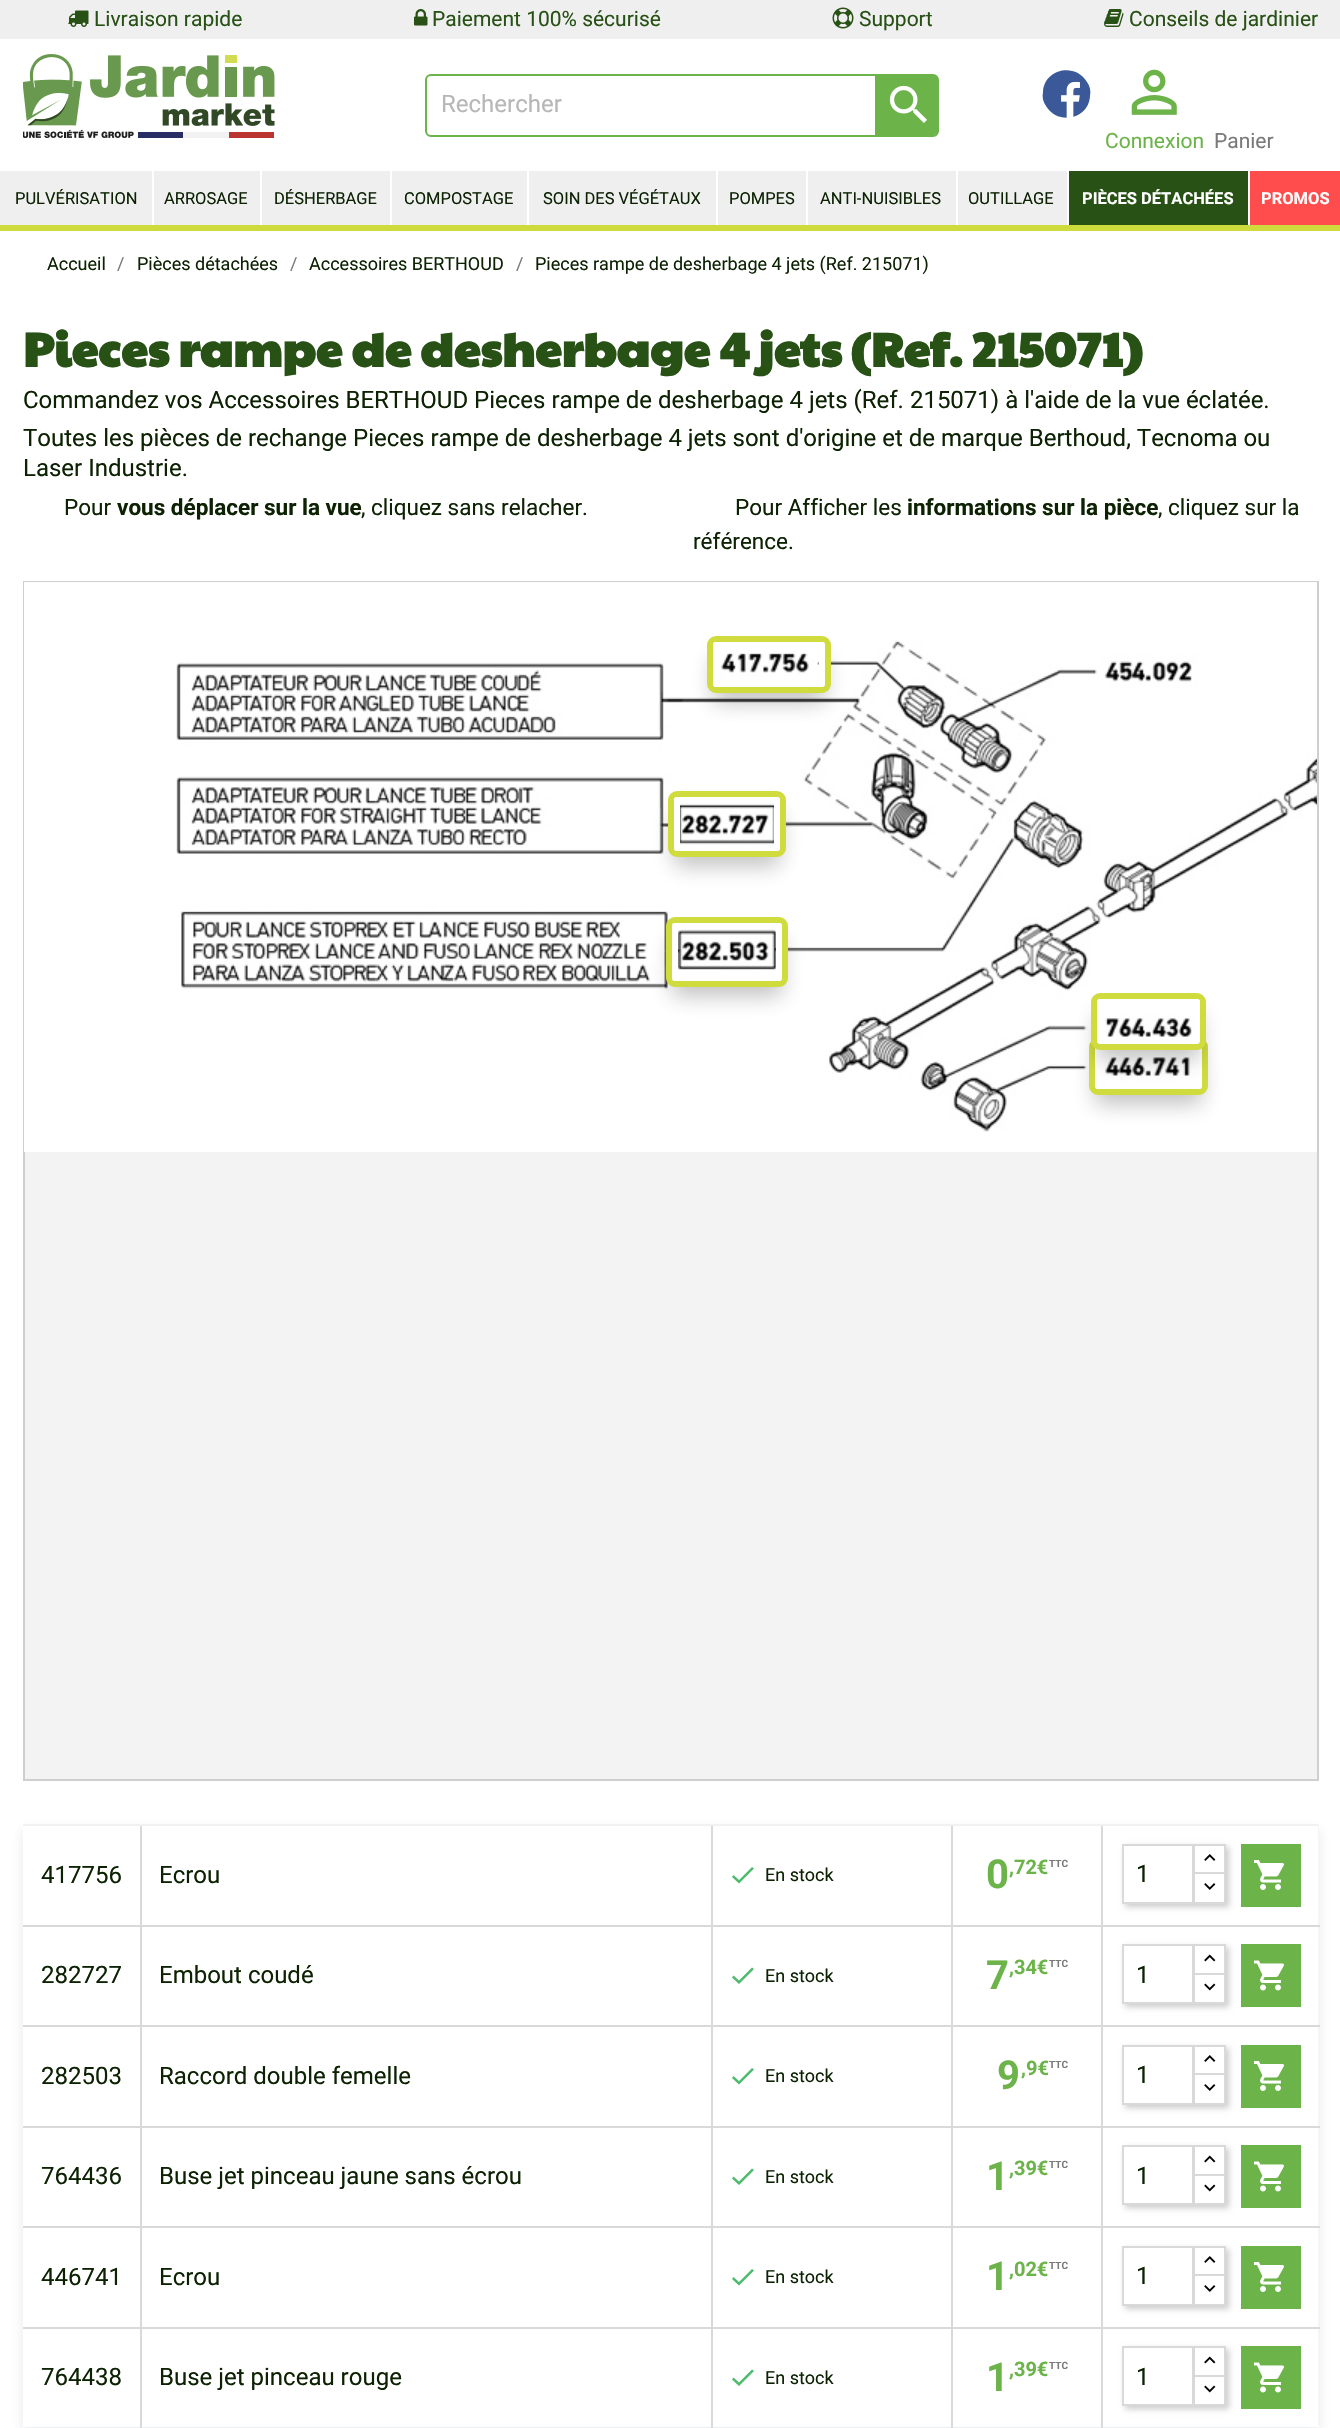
void draw(SkCanvas* canvas) {
  SkPaint paint;
  paint.setAntiAlias(true);
  auto face = [&](const char* family, int weight, float size, bool italic = false) {
    SkFontStyle style(weight, SkFontStyle::kNormal_Width,
      italic ? SkFontStyle::kItalic_Slant : SkFontStyle::kUpright_Slant);
    SkFont result(fontMgr->matchFamilyStyle(family, style), size);
    result.setSubpixel(true);
    return result;
  };
  auto paste = [&](const char* path, float x, float y, float w, float h) {
    auto image = SkImages::DeferredFromEncodedData(SkData::MakeFromFileName(path));
    canvas->drawImageRect(image, SkRect::MakeXYWH(x, y, w, h), SkSamplingOptions());
  };
  auto shape = [&](const char* data, bool evenOdd = false) {
    SkPath result = *SkParsePath::FromSVGString(data);
    if (evenOdd) result.setFillType(SkPathFillType::kEvenOdd);
    return result;
  };
  canvas->clear(0xffffffff);
  paint.setColor(0xffefefef);
  canvas->drawRect(SkRect::MakeXYWH(0, 0, 1340, 39), paint);
  paste("img/1.png", 68, 10, 21, 17);
  paste("img/2.png", 414, 9, 14, 17);
  paste("img/3.png", 832, 7, 22, 22);
  paste("img/4.png", 1104, 9, 20, 18);
  paste("img/5.png", 23, 54, 252, 84);
  paint.setStroke(true);
  paint.setStrokeWidth(2);
  paint.setColor(0xff6cb34a);
  canvas->drawRoundRect(SkRect::MakeXYWH(426, 75, 512, 61), 5, 5, paint);
  paint.setStroke(false);
  canvas->drawPath(shape("M875 75H933C936 75 938 77 938 80V130C938 133 936 135 933 135H875Z"), paint);
  paste("img/6.png", 889, 85, 38, 38);
  paint.setColor(0xff3b5998);
  canvas->drawPath(shape("M1087 82C1090 86 1091 91 1090 96C1089 119 1058 126 1046 106C1043 102 1042 97 1043 92C1044 69 1075 62 1087 82Z"), paint);
  paste("img/7.png", 1061, 81, 19, 37);
  paste("img/8.png", 1131, 69, 46, 46);
  {
    const struct { float x, y, w, h; SkColor color; } items[] = {
      {0, 225, 1340, 6, 0xffcfdb3d},
      {0, 171, 1067, 54, 0xffefefef},
      {152, 171, 2, 54, 0xffffffff},
      {260, 171, 2, 54, 0xffffffff},
      {390, 171, 2, 54, 0xffffffff},
      {527, 171, 2, 54, 0xffffffff},
      {716, 171, 2, 54, 0xffffffff},
      {806, 171, 2, 54, 0xffffffff},
      {956, 171, 2, 54, 0xffffffff},
      {1069, 171, 179, 54, 0xff285116},
      {1250, 171, 90, 54, 0xffff4c4c},
      {25, 1152, 1292, 627, 0xfff3f3f3},
    };
    for (auto [x, y, w, h, color] : items) {
      paint.setColor(color);
      canvas->drawRect(SkRect::MakeXYWH(x, y, w, h), paint);
    }
  }
  paint.setStroke(true);
  paint.setColor(0xffcfcfcf);
  canvas->drawRect(SkRect::MakeXYWH(24, 582, 1294, 1198), paint);
  canvas->save();
  canvas->clipRect(SkRect::MakeXYWH(24, 582, 1293, 570));
  paint.setStrokeWidth(23);
  paint.setColor(0xffffffff);
  canvas->drawRect(SkRect::MakeXYWH(35.5f, 593.5f, 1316, 562), paint);
  canvas->restore();
  paste("img/9.png", 176, 640, 1141, 492);
  canvas->save();
  canvas->clipPath(shape("M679 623H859V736H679ZM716 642H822C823.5 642 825 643.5 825 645V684C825 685.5 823.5 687 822 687H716C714.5 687 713 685.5 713 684V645C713 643.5 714.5 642 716 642Z", true), true);
  paint.setStroke(false);
  paint.setColor(0x40040305);
  paint.setMaskFilter(SkMaskFilter::MakeBlur(kNormal_SkBlurStyle, 11));
  canvas->drawRoundRect(SkRect::MakeXYWH(713, 657, 112, 45), 3, 3, paint);
  paint.setMaskFilter(nullptr);
  canvas->restore();
  paint.setStroke(true);
  paint.setStrokeWidth(6);
  paint.setColor(0xffd0db3e);
  canvas->drawRoundRect(SkRect::MakeXYWH(710, 639, 118, 51), 6, 6, paint);
  paint.setStrokeWidth(3);
  paint.setColor(0xffffffff);
  canvas->drawRect(SkRect::MakeXYWH(717.5f, 646.5f, 103, 36), paint);
  canvas->drawRoundRect(SkRect::MakeXYWH(714.5f, 643.5f, 109, 42), 1.5f, 1.5f, paint);
  canvas->save();
  canvas->clipPath(shape("M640 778H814V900H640ZM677 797H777C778.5 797 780 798.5 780 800V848C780 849.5 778.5 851 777 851H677C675.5 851 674 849.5 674 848V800C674 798.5 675.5 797 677 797Z", true), true);
  paint.setStroke(false);
  paint.setColor(0x40040305);
  paint.setMaskFilter(SkMaskFilter::MakeBlur(kNormal_SkBlurStyle, 11));
  canvas->drawRoundRect(SkRect::MakeXYWH(674, 812, 106, 54), 3, 3, paint);
  paint.setMaskFilter(nullptr);
  canvas->restore();
  paint.setStroke(true);
  paint.setStrokeWidth(6);
  paint.setColor(0xffd0db3e);
  canvas->drawRoundRect(SkRect::MakeXYWH(671, 794, 112, 60), 6, 6, paint);
  paint.setStrokeWidth(3);
  paint.setColor(0xffffffff);
  canvas->drawRect(SkRect::MakeXYWH(678.5f, 801.5f, 97, 45), paint);
  canvas->drawRoundRect(SkRect::MakeXYWH(675.5f, 798.5f, 103, 51), 1.5f, 1.5f, paint);
  canvas->save();
  canvas->clipPath(shape("M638 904H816V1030H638ZM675 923H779C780.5 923 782 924.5 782 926V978C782 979.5 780.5 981 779 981H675C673.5 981 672 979.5 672 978V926C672 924.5 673.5 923 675 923Z", true), true);
  paint.setStroke(false);
  paint.setColor(0x40040305);
  paint.setMaskFilter(SkMaskFilter::MakeBlur(kNormal_SkBlurStyle, 11));
  canvas->drawRoundRect(SkRect::MakeXYWH(672, 938, 110, 58), 3, 3, paint);
  paint.setMaskFilter(nullptr);
  canvas->restore();
  paint.setStroke(true);
  paint.setStrokeWidth(6);
  paint.setColor(0xffd0db3e);
  canvas->drawRoundRect(SkRect::MakeXYWH(669, 920, 116, 64), 6, 6, paint);
  paint.setStrokeWidth(3);
  paint.setColor(0xffffffff);
  canvas->drawRect(SkRect::MakeXYWH(676.5f, 927.5f, 101, 49), paint);
  canvas->drawRoundRect(SkRect::MakeXYWH(673.5f, 924.5f, 107, 55), 1.5f, 1.5f, paint);
  canvas->save();
  canvas->clipPath(shape("M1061 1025H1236V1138H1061ZM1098 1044H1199C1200.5 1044 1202 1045.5 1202 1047V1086C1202 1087.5 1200.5 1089 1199 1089H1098C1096.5 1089 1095 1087.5 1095 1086V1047C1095 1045.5 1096.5 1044 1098 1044Z", true), true);
  paint.setStroke(false);
  paint.setColor(0x40040305);
  paint.setMaskFilter(SkMaskFilter::MakeBlur(kNormal_SkBlurStyle, 11));
  canvas->drawRoundRect(SkRect::MakeXYWH(1095, 1059, 107, 45), 3, 3, paint);
  paint.setMaskFilter(nullptr);
  canvas->restore();
  paint.setStroke(true);
  paint.setStrokeWidth(6);
  paint.setColor(0xffd0db3e);
  canvas->drawRoundRect(SkRect::MakeXYWH(1092, 1041, 113, 51), 6, 6, paint);
  paint.setStrokeWidth(3);
  paint.setColor(0xffffffff);
  canvas->drawRoundRect(SkRect::MakeXYWH(1096.5f, 1045.5f, 104, 42), 1.5f, 1.5f, paint);
  canvas->save();
  canvas->clipPath(shape("M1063 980H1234V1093H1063ZM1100 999H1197C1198.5 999 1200 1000.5 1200 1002V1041C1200 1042.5 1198.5 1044 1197 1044H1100C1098.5 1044 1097 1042.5 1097 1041V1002C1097 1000.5 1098.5 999 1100 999Z", true), true);
  paint.setStroke(false);
  paint.setColor(0x40040305);
  paint.setMaskFilter(SkMaskFilter::MakeBlur(kNormal_SkBlurStyle, 11));
  canvas->drawRoundRect(SkRect::MakeXYWH(1097, 1014, 103, 45), 3, 3, paint);
  paint.setMaskFilter(nullptr);
  canvas->restore();
  paint.setStroke(true);
  paint.setStrokeWidth(6);
  paint.setColor(0xffd0db3e);
  canvas->drawRoundRect(SkRect::MakeXYWH(1094, 996, 109, 51), 6, 6, paint);
  paint.setStrokeWidth(3);
  paint.setColor(0xffffffff);
  canvas->drawRect(SkRect::MakeXYWH(1101.5f, 1003.5f, 94, 36), paint);
  canvas->drawRoundRect(SkRect::MakeXYWH(1098.5f, 1000.5f, 100, 42), 1.5f, 1.5f, paint);
  canvas->save();
  canvas->clipPath(shape("M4 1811H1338V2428H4ZM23 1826H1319V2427H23Z", true), true);
  paint.setStroke(false);
  paint.setColor(0x1a181f38);
  paint.setMaskFilter(SkMaskFilter::MakeBlur(kNormal_SkBlurStyle, 6));
  canvas->drawRect(SkRect::MakeXYWH(23, 1830, 1296, 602), paint);
  paint.setMaskFilter(nullptr);
  canvas->restore();
  paint.setColor(0x0a181f38);
  canvas->drawPath(shape("M23 1824V1826H1318V2426H1319V1824Z"), paint);
  {
    const struct { float x, y, w, h; SkColor color; } items[] = {
      {1101, 1925, 219, 2, 0xffd9d9d9},
      {1101, 2025, 219, 2, 0xffd9d9d9},
      {1101, 2126, 219, 2, 0xffd9d9d9},
      {1101, 2226, 219, 2, 0xffd9d9d9},
      {1101, 2327, 219, 2, 0xffd9d9d9},
      {1101, 2327, 2, 101, 0xffd9d9d9},
      {951, 2327, 152, 2, 0xffd9d9d9},
      {1101, 2226, 2, 102, 0xffd9d9d9},
      {951, 2226, 152, 2, 0xffd9d9d9},
      {1101, 2126, 2, 102, 0xffd9d9d9},
      {951, 2126, 152, 2, 0xffd9d9d9},
      {1101, 2025, 2, 102, 0xffd9d9d9},
      {951, 2025, 152, 2, 0xffd9d9d9},
      {1101, 1925, 2, 102, 0xffd9d9d9},
      {951, 1925, 152, 2, 0xffd9d9d9},
      {951, 2327, 2, 101, 0xffd9d9d9},
      {711, 2327, 242, 2, 0xffd9d9d9},
      {951, 2226, 2, 102, 0xffd9d9d9},
      {711, 2226, 242, 2, 0xffd9d9d9},
      {951, 2126, 2, 102, 0xffd9d9d9},
      {711, 2126, 242, 2, 0xffd9d9d9},
      {951, 2025, 2, 102, 0xffd9d9d9},
      {711, 2025, 242, 2, 0xffd9d9d9},
      {951, 1925, 2, 102, 0xffd9d9d9},
      {711, 1925, 242, 2, 0xffd9d9d9},
      {711, 2327, 2, 101, 0xffd9d9d9},
      {140, 2327, 573, 2, 0xffd9d9d9},
      {711, 2226, 2, 102, 0xffd9d9d9},
      {140, 2226, 573, 2, 0xffd9d9d9},
      {711, 2126, 2, 102, 0xffd9d9d9},
      {140, 2126, 573, 2, 0xffd9d9d9},
      {711, 2025, 2, 102, 0xffd9d9d9},
      {140, 2025, 573, 2, 0xffd9d9d9},
      {711, 1925, 2, 102, 0xffd9d9d9},
      {140, 1925, 573, 2, 0xffd9d9d9},
      {140, 2327, 2, 101, 0xffd9d9d9},
      {23, 2327, 118, 2, 0xffd9d9d9},
      {140, 2226, 2, 102, 0xffd9d9d9},
      {23, 2226, 118, 2, 0xffd9d9d9},
      {140, 2126, 2, 102, 0xffd9d9d9},
      {23, 2126, 118, 2, 0xffd9d9d9},
      {140, 2025, 2, 102, 0xffd9d9d9},
      {23, 2025, 118, 2, 0xffd9d9d9},
      {140, 1925, 2, 102, 0xffd9d9d9},
      {23, 1925, 118, 2, 0xffd9d9d9},
      {140, 1826, 2, 100, 0xffd9d9d9},
      {711, 1826, 2, 100, 0xffd9d9d9},
    };
    for (auto [x, y, w, h, color] : items) {
      paint.setColor(color);
      canvas->drawRect(SkRect::MakeXYWH(x, y, w, h), paint);
    }
  }
  paint.setColor(0xff4cbb6c);
  canvas->drawPath(shape("M739 1880L752 1867L754 1868.5L739 1883.5L732 1877L733.5 1875Z"), paint);
  paint.setColor(0xffd9d9d9);
  canvas->drawRect(SkRect::MakeXYWH(951, 1826, 2, 100), paint);
  canvas->drawRect(SkRect::MakeXYWH(1101, 1826, 2, 100), paint);
  paint.setColor(0x33000000);
  paint.setMaskFilter(SkMaskFilter::MakeBlur(kNormal_SkBlurStyle, 3));
  canvas->drawRect(SkRect::MakeXYWH(1125, 1847, 104, 60), paint);
  paint.setMaskFilter(nullptr);
  paint.setColor(0xffffffff);
  canvas->drawRect(SkRect::MakeXYWH(1195, 1846, 29, 26), paint);
  paint.setStroke(true);
  paint.setStrokeWidth(2);
  paint.setColor(0xffd9d9d9);
  canvas->drawRect(SkRect::MakeXYWH(1194, 1845, 31, 29), paint);
  paint.setStroke(false);
  paint.setColor(0xffffffff);
  canvas->drawRect(SkRect::MakeXYWH(1194, 1873, 31, 30), paint);
  paint.setStroke(true);
  paint.setColor(0xffd9d9d9);
  canvas->drawRect(SkRect::MakeXYWH(1194, 1873, 31, 30), paint);
  paint.setStroke(false);
  paint.setColor(0xffffffff);
  canvas->drawRect(SkRect::MakeXYWH(1123, 1845, 70, 58), paint);
  paint.setStroke(true);
  paint.setColor(0xffd9d9d9);
  canvas->drawRect(SkRect::MakeXYWH(1123, 1845, 70, 58), paint);
  paste("img/10.png", 1204, 1854, 12, 7);
  paste("img/11.png", 1204, 1883, 12, 7);
  paint.setStroke(false);
  paint.setColor(0xff6cb34a);
  canvas->drawRect(SkRect::MakeXYWH(1241, 1844, 60, 63), paint);
  paste("img/12.png", 1253, 1860, 31, 30);
  paint.setColor(0xff4cbb6c);
  canvas->drawPath(shape("M739 1980.5L752 1967.5L754 1969L739 1984L732 1977.5L733.5 1975.5Z"), paint);
  paint.setColor(0x33000000);
  paint.setMaskFilter(SkMaskFilter::MakeBlur(kNormal_SkBlurStyle, 3));
  canvas->drawRect(SkRect::MakeXYWH(1125, 1947, 104, 60), paint);
  paint.setMaskFilter(nullptr);
  paint.setColor(0xffffffff);
  canvas->drawRect(SkRect::MakeXYWH(1195, 1946, 29, 27), paint);
  paint.setStroke(true);
  paint.setColor(0xffd9d9d9);
  canvas->drawRect(SkRect::MakeXYWH(1194, 1945, 31, 30), paint);
  paint.setStroke(false);
  paint.setColor(0xffffffff);
  canvas->drawRect(SkRect::MakeXYWH(1194, 1974, 31, 29), paint);
  paint.setStroke(true);
  paint.setColor(0xffd9d9d9);
  canvas->drawRect(SkRect::MakeXYWH(1194, 1974, 31, 29), paint);
  paint.setStroke(false);
  paint.setColor(0xffffffff);
  canvas->drawRect(SkRect::MakeXYWH(1123, 1945, 70, 58), paint);
  paint.setStroke(true);
  paint.setColor(0xffd9d9d9);
  canvas->drawRect(SkRect::MakeXYWH(1123, 1945, 70, 58), paint);
  paste("img/13.png", 1204, 1954, 12, 8);
  paste("img/14.png", 1204, 1983, 12, 8);
  paint.setStroke(false);
  paint.setColor(0xff6cb34a);
  canvas->drawRect(SkRect::MakeXYWH(1241, 1944, 60, 63), paint);
  paste("img/15.png", 1253, 1960, 31, 31);
  paint.setColor(0xff4cbb6c);
  canvas->drawPath(shape("M739 2081L752 2068L754 2069.5L739 2084.5L732 2078L733.5 2076Z"), paint);
  paint.setColor(0x33000000);
  paint.setMaskFilter(SkMaskFilter::MakeBlur(kNormal_SkBlurStyle, 3));
  canvas->drawRect(SkRect::MakeXYWH(1125, 2048, 104, 60), paint);
  paint.setMaskFilter(nullptr);
  paint.setColor(0xffffffff);
  canvas->drawRect(SkRect::MakeXYWH(1195, 2047, 29, 26), paint);
  paint.setStroke(true);
  paint.setColor(0xffd9d9d9);
  canvas->drawRect(SkRect::MakeXYWH(1194, 2046, 31, 29), paint);
  paint.setStroke(false);
  paint.setColor(0xffffffff);
  canvas->drawRect(SkRect::MakeXYWH(1194, 2074, 31, 30), paint);
  paint.setStroke(true);
  paint.setColor(0xffd9d9d9);
  canvas->drawRect(SkRect::MakeXYWH(1194, 2074, 31, 30), paint);
  paint.setStroke(false);
  paint.setColor(0xffffffff);
  canvas->drawRect(SkRect::MakeXYWH(1123, 2046, 70, 58), paint);
  paint.setStroke(true);
  paint.setColor(0xffd9d9d9);
  canvas->drawRect(SkRect::MakeXYWH(1123, 2046, 70, 58), paint);
  paste("img/10.png", 1204, 2055, 12, 7);
  paste("img/11.png", 1204, 2084, 12, 7);
  paint.setStroke(false);
  paint.setColor(0xff6cb34a);
  canvas->drawRect(SkRect::MakeXYWH(1241, 2045, 60, 63), paint);
  paste("img/12.png", 1253, 2061, 31, 30);
  paint.setColor(0xff4cbb6c);
  canvas->drawPath(shape("M739 2181.5L752 2168.5L754 2170L739 2185L732 2178.5L733.5 2176.5Z"), paint);
  paint.setColor(0x33000000);
  paint.setMaskFilter(SkMaskFilter::MakeBlur(kNormal_SkBlurStyle, 3));
  canvas->drawRect(SkRect::MakeXYWH(1125, 2148, 104, 60), paint);
  paint.setMaskFilter(nullptr);
  paint.setColor(0xffffffff);
  canvas->drawRect(SkRect::MakeXYWH(1195, 2147, 29, 27), paint);
  paint.setStroke(true);
  paint.setColor(0xffd9d9d9);
  canvas->drawRect(SkRect::MakeXYWH(1194, 2146, 31, 30), paint);
  paint.setStroke(false);
  paint.setColor(0xffffffff);
  canvas->drawRect(SkRect::MakeXYWH(1194, 2175, 31, 29), paint);
  paint.setStroke(true);
  paint.setColor(0xffd9d9d9);
  canvas->drawRect(SkRect::MakeXYWH(1194, 2175, 31, 29), paint);
  paint.setStroke(false);
  paint.setColor(0xffffffff);
  canvas->drawRect(SkRect::MakeXYWH(1123, 2146, 70, 58), paint);
  paint.setStroke(true);
  paint.setColor(0xffd9d9d9);
  canvas->drawRect(SkRect::MakeXYWH(1123, 2146, 70, 58), paint);
  paste("img/13.png", 1204, 2155, 12, 8);
  paste("img/14.png", 1204, 2184, 12, 8);
  paint.setStroke(false);
  paint.setColor(0xff6cb34a);
  canvas->drawRect(SkRect::MakeXYWH(1241, 2145, 60, 63), paint);
  paste("img/15.png", 1253, 2161, 31, 31);
  paint.setColor(0xff4cbb6c);
  canvas->drawPath(shape("M739 2282L752 2269L754 2270.5L739 2285.5L732 2279L733.5 2277Z"), paint);
  paint.setColor(0x33000000);
  paint.setMaskFilter(SkMaskFilter::MakeBlur(kNormal_SkBlurStyle, 3));
  canvas->drawRect(SkRect::MakeXYWH(1125, 2249, 104, 60), paint);
  paint.setMaskFilter(nullptr);
  paint.setColor(0xffffffff);
  canvas->drawRect(SkRect::MakeXYWH(1195, 2248, 29, 26), paint);
  paint.setStroke(true);
  paint.setColor(0xffd9d9d9);
  canvas->drawRect(SkRect::MakeXYWH(1194, 2247, 31, 29), paint);
  paint.setStroke(false);
  paint.setColor(0xffffffff);
  canvas->drawRect(SkRect::MakeXYWH(1194, 2275, 31, 30), paint);
  paint.setStroke(true);
  paint.setColor(0xffd9d9d9);
  canvas->drawRect(SkRect::MakeXYWH(1194, 2275, 31, 30), paint);
  paint.setStroke(false);
  paint.setColor(0xffffffff);
  canvas->drawRect(SkRect::MakeXYWH(1123, 2247, 70, 58), paint);
  paint.setStroke(true);
  paint.setColor(0xffd9d9d9);
  canvas->drawRect(SkRect::MakeXYWH(1123, 2247, 70, 58), paint);
  paste("img/10.png", 1204, 2256, 12, 7);
  paste("img/11.png", 1204, 2285, 12, 7);
  paint.setStroke(false);
  paint.setColor(0xff6cb34a);
  canvas->drawRect(SkRect::MakeXYWH(1241, 2246, 60, 63), paint);
  paste("img/12.png", 1253, 2262, 31, 30);
  paint.setColor(0xff4cbb6c);
  canvas->drawPath(shape("M739 2382.5L752 2369.5L754 2371L739 2386L732 2379.5L733.5 2377.5Z"), paint);
  paint.setColor(0x33000000);
  paint.setMaskFilter(SkMaskFilter::MakeBlur(kNormal_SkBlurStyle, 3));
  canvas->drawRect(SkRect::MakeXYWH(1125, 2349, 104, 60), paint);
  paint.setMaskFilter(nullptr);
  paint.setColor(0xffffffff);
  canvas->drawRect(SkRect::MakeXYWH(1195, 2348, 29, 27), paint);
  paint.setStroke(true);
  paint.setColor(0xffd9d9d9);
  canvas->drawRect(SkRect::MakeXYWH(1194, 2347, 31, 30), paint);
  paint.setStroke(false);
  paint.setColor(0xffffffff);
  canvas->drawRect(SkRect::MakeXYWH(1194, 2376, 31, 29), paint);
  paint.setStroke(true);
  paint.setColor(0xffd9d9d9);
  canvas->drawRect(SkRect::MakeXYWH(1194, 2376, 31, 29), paint);
  paint.setStroke(false);
  paint.setColor(0xffffffff);
  canvas->drawRect(SkRect::MakeXYWH(1123, 2347, 70, 58), paint);
  paint.setStroke(true);
  paint.setColor(0xffd9d9d9);
  canvas->drawRect(SkRect::MakeXYWH(1123, 2347, 70, 58), paint);
  paste("img/13.png", 1204, 2356, 12, 8);
  paste("img/14.png", 1204, 2385, 12, 8);
  paint.setStroke(false);
  paint.setColor(0xff6cb34a);
  canvas->drawRect(SkRect::MakeXYWH(1241, 2346, 60, 63), paint);
  paste("img/15.png", 1253, 2362, 31, 31);
  auto f0 = face("Roboto", 400, 21);
  paint.setColor(0xff285116);
  {
    const struct { const char* s; float x, y; } items[] = {
      {"Livraison rapide", 94, 26},
      {"Paiement 100% sécurisé", 432, 26},
      {"Support", 859, 26},
      {"Conseils de jardinier", 1129, 26},
    };
    for (auto [s, x, y] : items) {
      canvas->drawString(s, x, y, f0, paint);
    }
  }
  auto f1 = face("Roboto", 400, 24);
  paint.setColor(0xffb7b7b7);
  canvas->drawString("Rechercher", 441, 112, f1, paint);
  paint.setColor(0xff6cb34a);
  canvas->drawString("Connexion", 1105, 148, f0, paint);
  paint.setColor(0xff7a7a7a);
  canvas->drawString("Panier", 1214, 148, f0, paint);
  auto f2 = face("Roboto", 400, 16.5f);
  paint.setColor(0xff0c2203);
  {
    const struct { const char* s; float x, y; } items[] = {
      {"PULVÉRISATION", 15, 204},
      {"ARROSAGE", 164, 204},
      {"DÉSHERBAGE", 274, 204},
      {"COMPOSTAGE", 404, 204},
      {"SOIN DES VÉGÉTAUX", 543, 204},
      {"POMPES", 729, 204},
      {"ANTI-NUISIBLES", 820, 204},
      {"OUTILLAGE", 968, 204},
    };
    for (auto [s, x, y] : items) {
      canvas->drawString(s, x, y, f2, paint);
    }
  }
  auto f3 = face("Roboto", 700, 16.5f);
  paint.setColor(0xffffffff);
  canvas->drawString("PIÈCES DÉTACHÉES", 1082, 204, f3, paint);
  canvas->drawString("PROMOS", 1261, 204, f3, paint);
  auto f4 = face("Roboto", 400, 18);
  paint.setColor(0xff0c2203);
  canvas->drawString("Accueil", 47, 270, f4, paint);
  paint.setColor(0xff7a7a7a);
  canvas->drawString("/", 117, 270, f4, paint);
  paint.setColor(0xff0c2203);
  canvas->drawString("Pièces détachées", 137, 270, f4, paint);
  paint.setColor(0xff7a7a7a);
  canvas->drawString("/", 290, 270, f4, paint);
  paint.setColor(0xff0c2203);
  canvas->drawString("Accessoires BERTHOUD", 309, 270, f4, paint);
  paint.setColor(0xff7a7a7a);
  canvas->drawString("/", 516, 270, f4, paint);
  paint.setColor(0xff0c2203);
  canvas->drawString("Pieces rampe de desherbage 4 jets (Ref. 215071)", 535, 270, f4, paint);
  auto f5 = face("Paytone One", 700, 48);
  paint.setColor(0xff285116);
  canvas->drawString("Pieces rampe de desherbage 4 jets (Ref. 215071)", 23, 367, f5, paint);
  paint.setColor(0xff0c2203);
  {
    const struct { const char* s; float x, y; } items[] = {
      {"Commandez vos Accessoires BERTHOUD Pieces rampe de desherbage 4 jets (Ref. 215071) à l'aide de la vue éclatée.", 23, 408},
      {"Toutes les pièces de rechange Pieces rampe de desherbage 4 jets sont d'origine et de marque Berthoud, Tecnoma ou", 23, 446},
      {"Laser Industrie.", 23, 476},
    };
    for (auto [s, x, y] : items) {
      canvas->drawString(s, x, y, f1, paint);
    }
  }
  auto f6 = face("Roboto", 400, 22.5f);
  canvas->drawString("Pour", 64, 515, f6, paint);
  auto f7 = face("Roboto", 700, 22.5f);
  canvas->drawString("vous déplacer sur la vue", 117, 515, f7, paint);
  canvas->drawString(", cliquez sans relacher.", 361, 515, f6, paint);
  canvas->drawString("Pour Afficher les", 735, 515, f6, paint);
  canvas->drawString("informations sur la pièce", 907, 515, f7, paint);
  canvas->drawString(", cliquez sur la", 1158, 515, f6, paint);
  canvas->drawString("référence.", 693, 549, f6, paint);
  canvas->drawString("417756", 41, 1883, f1, paint);
  canvas->drawString("Ecrou", 159, 1883, f1, paint);
  canvas->drawString("En stock", 765, 1881, f4, paint);
  auto f8 = face("Roboto", 700, 40);
  paint.setColor(0xff6cb34a);
  canvas->drawString("0", 986, 1888, f8, paint);
  auto f9 = face("Roboto", 700, 20);
  canvas->drawString(",72€", 1009, 1874, f9, paint);
  auto f10 = face("Roboto", 700, 10);
  paint.setColor(0xff7a7a7a);
  canvas->drawString("TTC", 1049, 1867, f10, paint);
  paint.setColor(0xff0c2203);
  {
    const struct { const char* s; float x, y; } items[] = {
      {"1", 1136, 1882},
      {"282727", 41, 1983},
      {"Embout coudé", 159, 1983},
    };
    for (auto [s, x, y] : items) {
      canvas->drawString(s, x, y, f1, paint);
    }
  }
  canvas->drawString("En stock", 765, 1982, f4, paint);
  paint.setColor(0xff6cb34a);
  canvas->drawString("7", 986, 1989, f8, paint);
  canvas->drawString(",34€", 1009, 1974, f9, paint);
  paint.setColor(0xff7a7a7a);
  canvas->drawString("TTC", 1049, 1967, f10, paint);
  paint.setColor(0xff0c2203);
  {
    const struct { const char* s; float x, y; } items[] = {
      {"1", 1136, 1983},
      {"282503", 41, 2084},
      {"Raccord double femelle", 159, 2084},
    };
    for (auto [s, x, y] : items) {
      canvas->drawString(s, x, y, f1, paint);
    }
  }
  canvas->drawString("En stock", 765, 2082, f4, paint);
  paint.setColor(0xff6cb34a);
  canvas->drawString("9", 997, 2089, f8, paint);
  canvas->drawString(",9€", 1021, 2075, f9, paint);
  paint.setColor(0xff7a7a7a);
  canvas->drawString("TTC", 1049, 2068, f10, paint);
  paint.setColor(0xff0c2203);
  {
    const struct { const char* s; float x, y; } items[] = {
      {"1", 1136, 2083},
      {"764436", 41, 2184},
      {"Buse jet pinceau jaune sans écrou", 159, 2184},
    };
    for (auto [s, x, y] : items) {
      canvas->drawString(s, x, y, f1, paint);
    }
  }
  canvas->drawString("En stock", 765, 2183, f4, paint);
  paint.setColor(0xff6cb34a);
  canvas->drawString("1", 986, 2190, f8, paint);
  canvas->drawString(",39€", 1009, 2175, f9, paint);
  paint.setColor(0xff7a7a7a);
  canvas->drawString("TTC", 1049, 2168, f10, paint);
  paint.setColor(0xff0c2203);
  {
    const struct { const char* s; float x, y; } items[] = {
      {"1", 1136, 2184},
      {"446741", 41, 2285},
      {"Ecrou", 159, 2285},
    };
    for (auto [s, x, y] : items) {
      canvas->drawString(s, x, y, f1, paint);
    }
  }
  canvas->drawString("En stock", 765, 2283, f4, paint);
  paint.setColor(0xff6cb34a);
  canvas->drawString("1", 986, 2290, f8, paint);
  canvas->drawString(",02€", 1009, 2276, f9, paint);
  paint.setColor(0xff7a7a7a);
  canvas->drawString("TTC", 1049, 2269, f10, paint);
  paint.setColor(0xff0c2203);
  {
    const struct { const char* s; float x, y; } items[] = {
      {"1", 1136, 2284},
      {"764438", 41, 2385},
      {"Buse jet pinceau rouge", 159, 2385},
    };
    for (auto [s, x, y] : items) {
      canvas->drawString(s, x, y, f1, paint);
    }
  }
  canvas->drawString("En stock", 765, 2384, f4, paint);
  paint.setColor(0xff6cb34a);
  canvas->drawString("1", 986, 2391, f8, paint);
  canvas->drawString(",39€", 1009, 2376, f9, paint);
  paint.setColor(0xff7a7a7a);
  canvas->drawString("TTC", 1049, 2369, f10, paint);
  paint.setColor(0xff0c2203);
  canvas->drawString("1", 1136, 2385, f1, paint);
}
